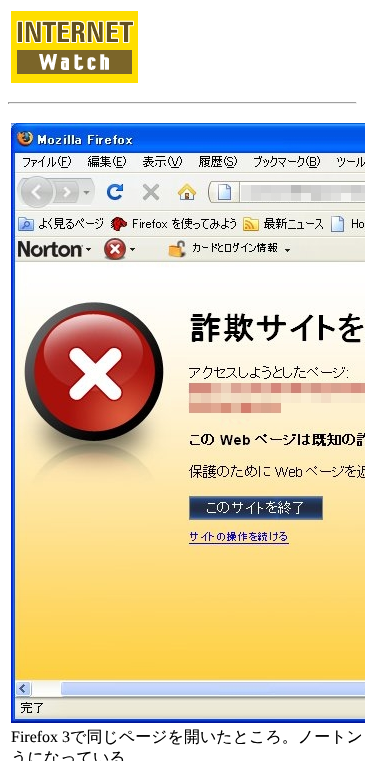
void draw(SkCanvas* canvas) {
  SkPaint paint;
  paint.setAntiAlias(true);
  auto face = [&](const char* family, int weight, float size, bool italic = false) {
    SkFontStyle style(weight, SkFontStyle::kNormal_Width,
      italic ? SkFontStyle::kItalic_Slant : SkFontStyle::kUpright_Slant);
    SkFont result(fontMgr->matchFamilyStyle(family, style), size);
    result.setSubpixel(true);
    return result;
  };
  auto paste = [&](const char* path, float x, float y, float w, float h) {
    auto image = SkImages::DeferredFromEncodedData(SkData::MakeFromFileName(path));
    canvas->drawImageRect(image, SkRect::MakeXYWH(x, y, w, h), SkSamplingOptions());
  };
  canvas->clear(0xffffffff);
  paste("img/1.png", 11, 11, 127, 72);
  {
    const struct { float x, y, w, h; SkColor color; } items[] = {
      {8, 102, 349, 1, 0xff9f9f9f},
      {356, 102, 1, 2, 0xffeeeeee},
      {8, 103, 349, 1, 0xffeeeeee},
      {8, 102, 1, 2, 0xff9f9f9f},
    };
    for (auto [x, y, w, h, color] : items) {
      paint.setColor(color);
      canvas->drawRect(SkRect::MakeXYWH(x, y, w, h), paint);
    }
  }
  paste("img/2.png", 11, 123, 354, 600);
  auto f0 = face("Liberation Serif", 400, 16);
  paint.setColor(0xff000000);
  canvas->drawString("Firefox 3", 11, 742, f0, paint);
  auto f1 = face("WenQuanYi Zen Hei", 500, 16);
  canvas->drawString("で同じページを開いたところ。ノートン", 70, 742, f1, paint);
  canvas->drawString("うになっている", 11, 763, f1, paint);
}
